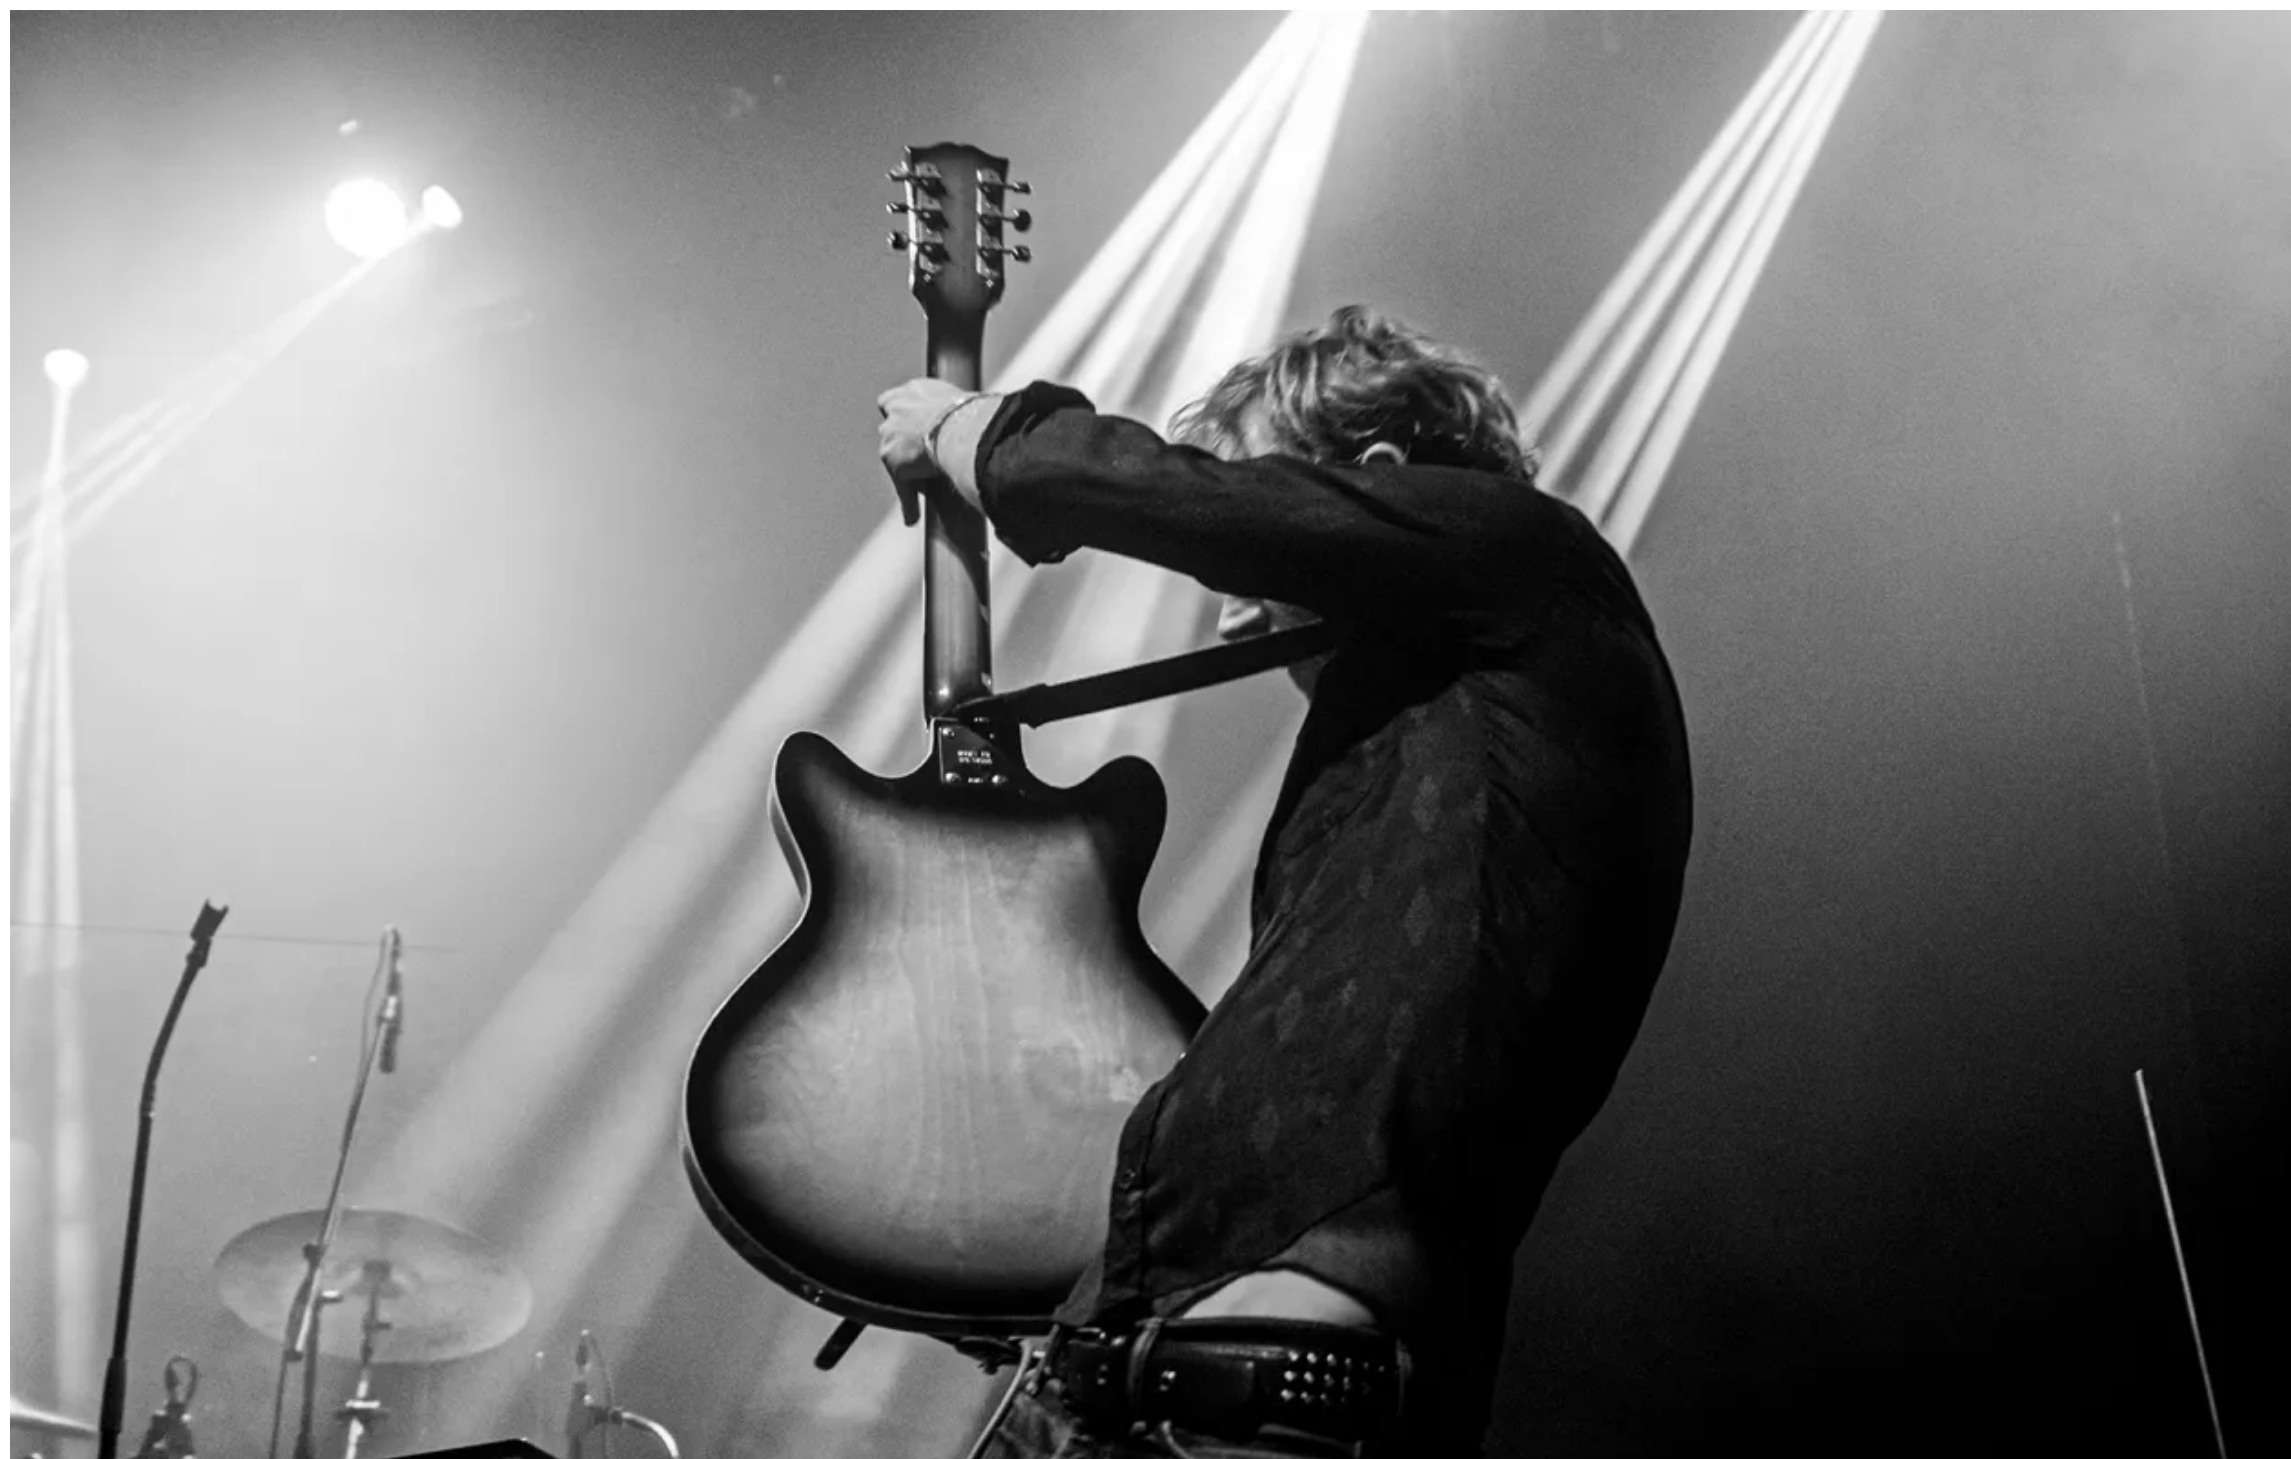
void draw(SkCanvas* canvas) {
  SkPaint paint;
  paint.setAntiAlias(true);
  auto paste = [&](const char* path, float x, float y, float w, float h) {
    auto image = SkImages::DeferredFromEncodedData(SkData::MakeFromFileName(path));
    canvas->drawImageRect(image, SkRect::MakeXYWH(x, y, w, h), SkSamplingOptions());
  };
  canvas->clear(0xffffffff);
  paste("img/1.png", 10, 10, 2281, 1449);
}
